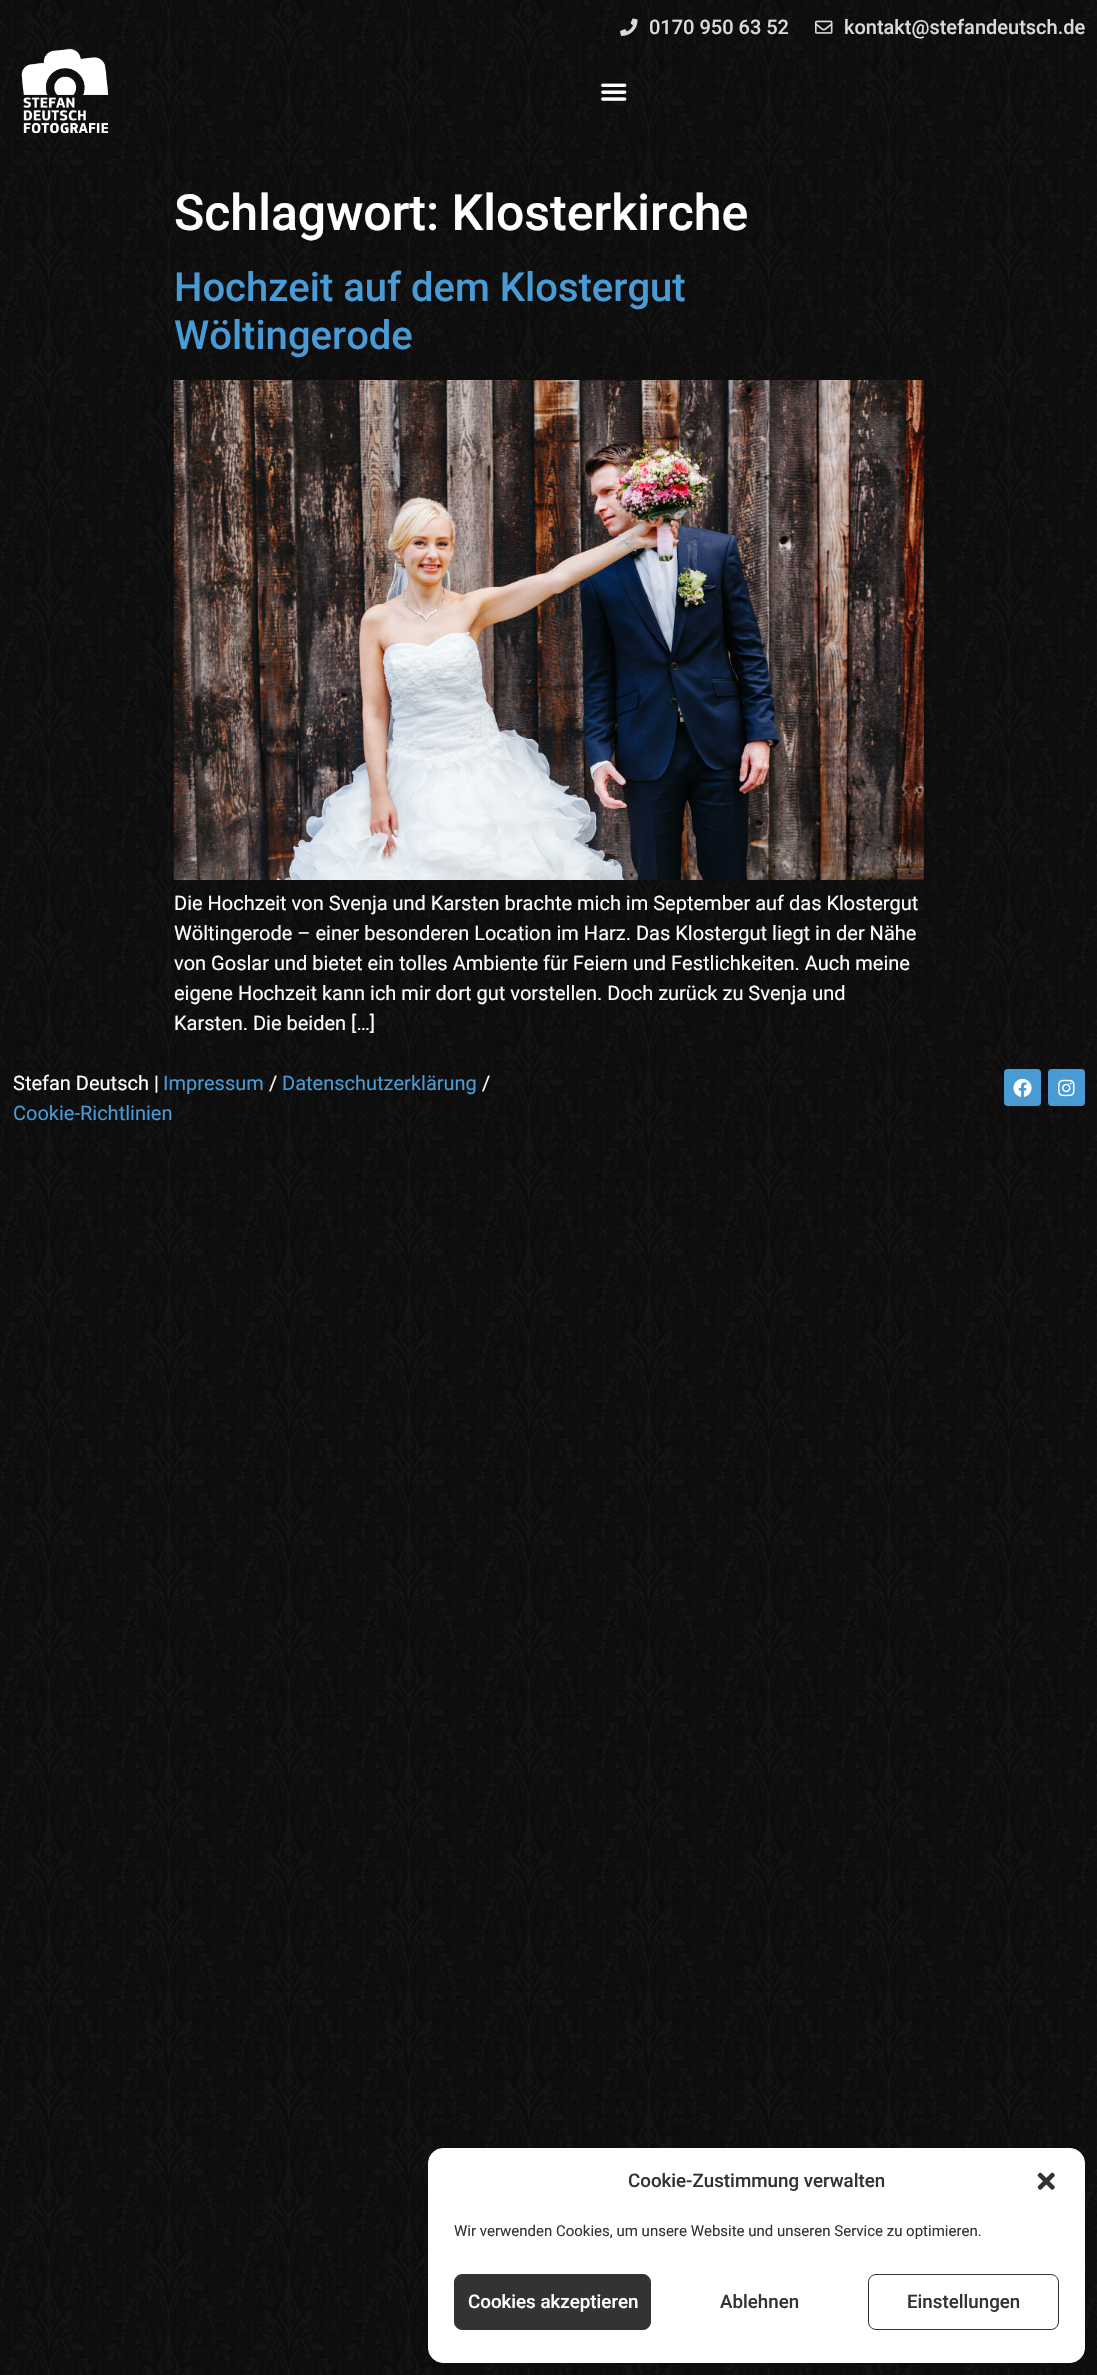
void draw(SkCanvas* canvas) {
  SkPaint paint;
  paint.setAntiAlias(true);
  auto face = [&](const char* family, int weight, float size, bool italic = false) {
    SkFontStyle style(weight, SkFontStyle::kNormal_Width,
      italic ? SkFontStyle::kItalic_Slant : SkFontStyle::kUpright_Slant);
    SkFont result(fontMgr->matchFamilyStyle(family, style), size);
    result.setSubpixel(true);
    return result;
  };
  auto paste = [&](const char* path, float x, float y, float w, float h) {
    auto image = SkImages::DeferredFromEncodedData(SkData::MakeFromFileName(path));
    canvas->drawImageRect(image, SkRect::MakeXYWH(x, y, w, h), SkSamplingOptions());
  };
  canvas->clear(0xffffffff);
  paste("img/1.png", 0, 0, 1097, 2375);
  paste("img/2.png", 620, 18, 18, 18);
  paste("img/3.png", 815, 20, 18, 14);
  paste("img/4.png", 21, 48, 88, 86);
  paste("img/5.png", 601, 83, 26, 18);
  paste("img/6.png", 173, 380, 751, 500);
  paint.setColor(0xff499bd5);
  canvas->drawRoundRect(SkRect::MakeXYWH(1004, 1069, 37, 37), 4, 4, paint);
  paste("img/7.png", 1013, 1078, 19, 19);
  canvas->drawRoundRect(SkRect::MakeXYWH(1048, 1069, 37, 37), 4, 4, paint);
  paste("img/8.png", 1058, 1079, 17, 18);
  paint.setColor(0xffffffff);
  canvas->drawRoundRect(SkRect::MakeXYWH(428.5f, 2148.5f, 656, 214), 14.5f, 14.5f, paint);
  paint.setStroke(true);
  paint.setStrokeWidth(1);
  canvas->drawRoundRect(SkRect::MakeXYWH(428.5f, 2148.5f, 656, 214), 14.5f, 14.5f, paint);
  paste("img/9.png", 1037, 2172, 18, 18);
  paint.setStroke(false);
  paint.setColor(0xff333333);
  canvas->drawRoundRect(SkRect::MakeXYWH(454.5f, 2274.5f, 196, 55), 7.5f, 7.5f, paint);
  paint.setStroke(true);
  canvas->drawRoundRect(SkRect::MakeXYWH(454.5f, 2274.5f, 196, 55), 7.5f, 7.5f, paint);
  canvas->drawRoundRect(SkRect::MakeXYWH(868.5f, 2274.5f, 190, 55), 7.5f, 7.5f, paint);
  auto f0 = face("Roboto", 500, 20);
  paint.setStroke(false);
  paint.setColor(0xffdadada);
  canvas->drawString("0170 950 63 52", 649, 34, f0, paint);
  canvas->drawString("kontakt@stefandeutsch.de", 844, 34, f0, paint);
  auto f1 = face("Roboto", 500, 50);
  paint.setColor(0xffffffff);
  canvas->drawString("Schlagwort: Klosterkirche", 174, 230, f1, paint);
  auto f2 = face("Roboto", 500, 40);
  paint.setColor(0xff499bd5);
  canvas->drawString("Hochzeit auf dem Klostergut", 174, 301, f2, paint);
  canvas->drawString("Wöltingerode", 174, 349, f2, paint);
  auto f3 = face("Roboto", 400, 20);
  paint.setColor(0xffffffff);
  {
    const struct { const char* s; float x, y; } items[] = {
      {"Die Hochzeit von Svenja und Karsten brachte mich im September auf das Klostergut", 174, 910},
      {"Wöltingerode – einer besonderen Location im Harz. Das Klostergut liegt in der Nähe", 174, 940},
      {"von Goslar und bietet ein tolles Ambiente für Feiern und Festlichkeiten. Auch meine", 174, 970},
      {"eigene Hochzeit kann ich mir dort gut vorstellen. Doch zurück zu Svenja und", 174, 1000},
      {"Karsten. Die beiden […]", 174, 1030},
      {"Stefan Deutsch |", 13, 1090},
    };
    for (auto [s, x, y] : items) {
      canvas->drawString(s, x, y, f3, paint);
    }
  }
  paint.setColor(0xff499bd5);
  canvas->drawString("Impressum", 163, 1090, f3, paint);
  paint.setColor(0xffffffff);
  canvas->drawString("/", 269, 1090, f3, paint);
  paint.setColor(0xff499bd5);
  canvas->drawString("Datenschutzerklärung", 282, 1090, f3, paint);
  paint.setColor(0xffffffff);
  canvas->drawString("/", 482, 1090, f3, paint);
  paint.setColor(0xff499bd5);
  canvas->drawString("Cookie-Richtlinien", 13, 1120, f3, paint);
  auto f4 = face("Roboto", 500, 18.75f);
  paint.setColor(0xff333333);
  canvas->drawString("Cookie-Zustimmung verwalten", 628, 2187, f4, paint);
  auto f5 = face("Roboto", 400, 15);
  canvas->drawString("Wir verwenden Cookies, um unsere Website und unseren Service zu optimieren.", 454, 2236, f5, paint);
  paint.setColor(0xffffffff);
  canvas->drawString("Cookies akzeptieren", 468, 2308, f4, paint);
  paint.setColor(0xff333333);
  canvas->drawString("Ablehnen", 720, 2308, f4, paint);
  canvas->drawString("Einstellungen", 907, 2308, f4, paint);
}
